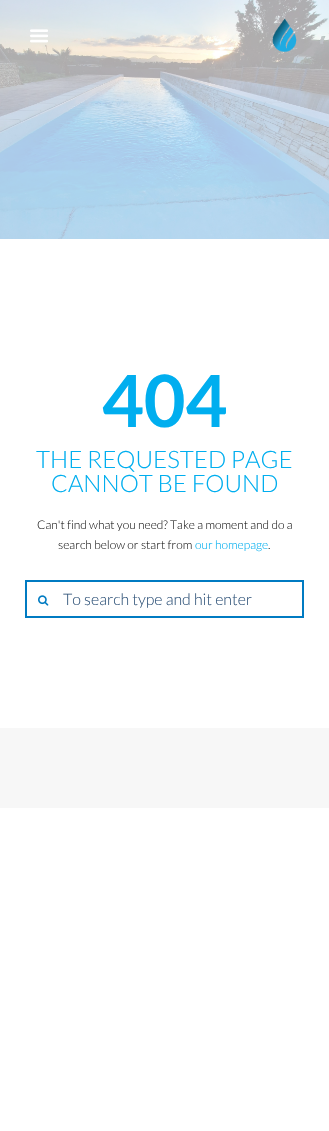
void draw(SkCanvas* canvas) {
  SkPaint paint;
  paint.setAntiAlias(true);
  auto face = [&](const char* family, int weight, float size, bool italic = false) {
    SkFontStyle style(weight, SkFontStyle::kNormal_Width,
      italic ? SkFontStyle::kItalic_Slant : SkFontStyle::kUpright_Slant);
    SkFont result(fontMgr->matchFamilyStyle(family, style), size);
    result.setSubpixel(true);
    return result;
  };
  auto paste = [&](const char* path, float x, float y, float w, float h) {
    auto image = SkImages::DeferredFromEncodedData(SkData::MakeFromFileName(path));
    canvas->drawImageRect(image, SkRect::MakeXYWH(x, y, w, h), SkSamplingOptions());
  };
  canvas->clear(0xffffffff);
  paste("img/1.png", 0, 0, 329, 239);
  paste("img/2.png", 30, 29, 18, 14);
  paste("img/3.png", 272, 18, 25, 34);
  paint.setStroke(true);
  paint.setStrokeWidth(2);
  paint.setColor(0xff007bc2);
  canvas->drawRect(SkRect::MakeXYWH(26, 581, 277, 36), paint);
  paste("img/4.png", 38, 595, 11, 11);
  paint.setStroke(false);
  paint.setColor(0xfff7f7f7);
  canvas->drawRect(SkRect::MakeXYWH(0, 728, 329, 80), paint);
  auto f0 = face("Lato", 700, 72);
  paint.setColor(0xff00aeef);
  canvas->drawString("404", 102, 427, f0, paint);
  auto f1 = face("Lato", 300, 24);
  canvas->drawString("THE REQUESTED PAGE", 36, 468, f1, paint);
  canvas->drawString("CANNOT BE FOUND", 51, 492, f1, paint);
  auto f2 = face("Lato", 300, 12);
  paint.setColor(0xff222222);
  canvas->drawString("Can't find what you need? Take a moment and do a", 37, 529, f2, paint);
  canvas->drawString("search below or start from", 58, 549, f2, paint);
  paint.setColor(0xff00aeef);
  canvas->drawString("our homepage", 195, 549, f2, paint);
  paint.setColor(0xff222222);
  canvas->drawString(".", 268, 549, f2, paint);
  auto f3 = face("Lato", 300, 16);
  paint.setColor(0xff33567b);
  canvas->drawString("To search type and hit enter", 63, 605, f3, paint);
}
